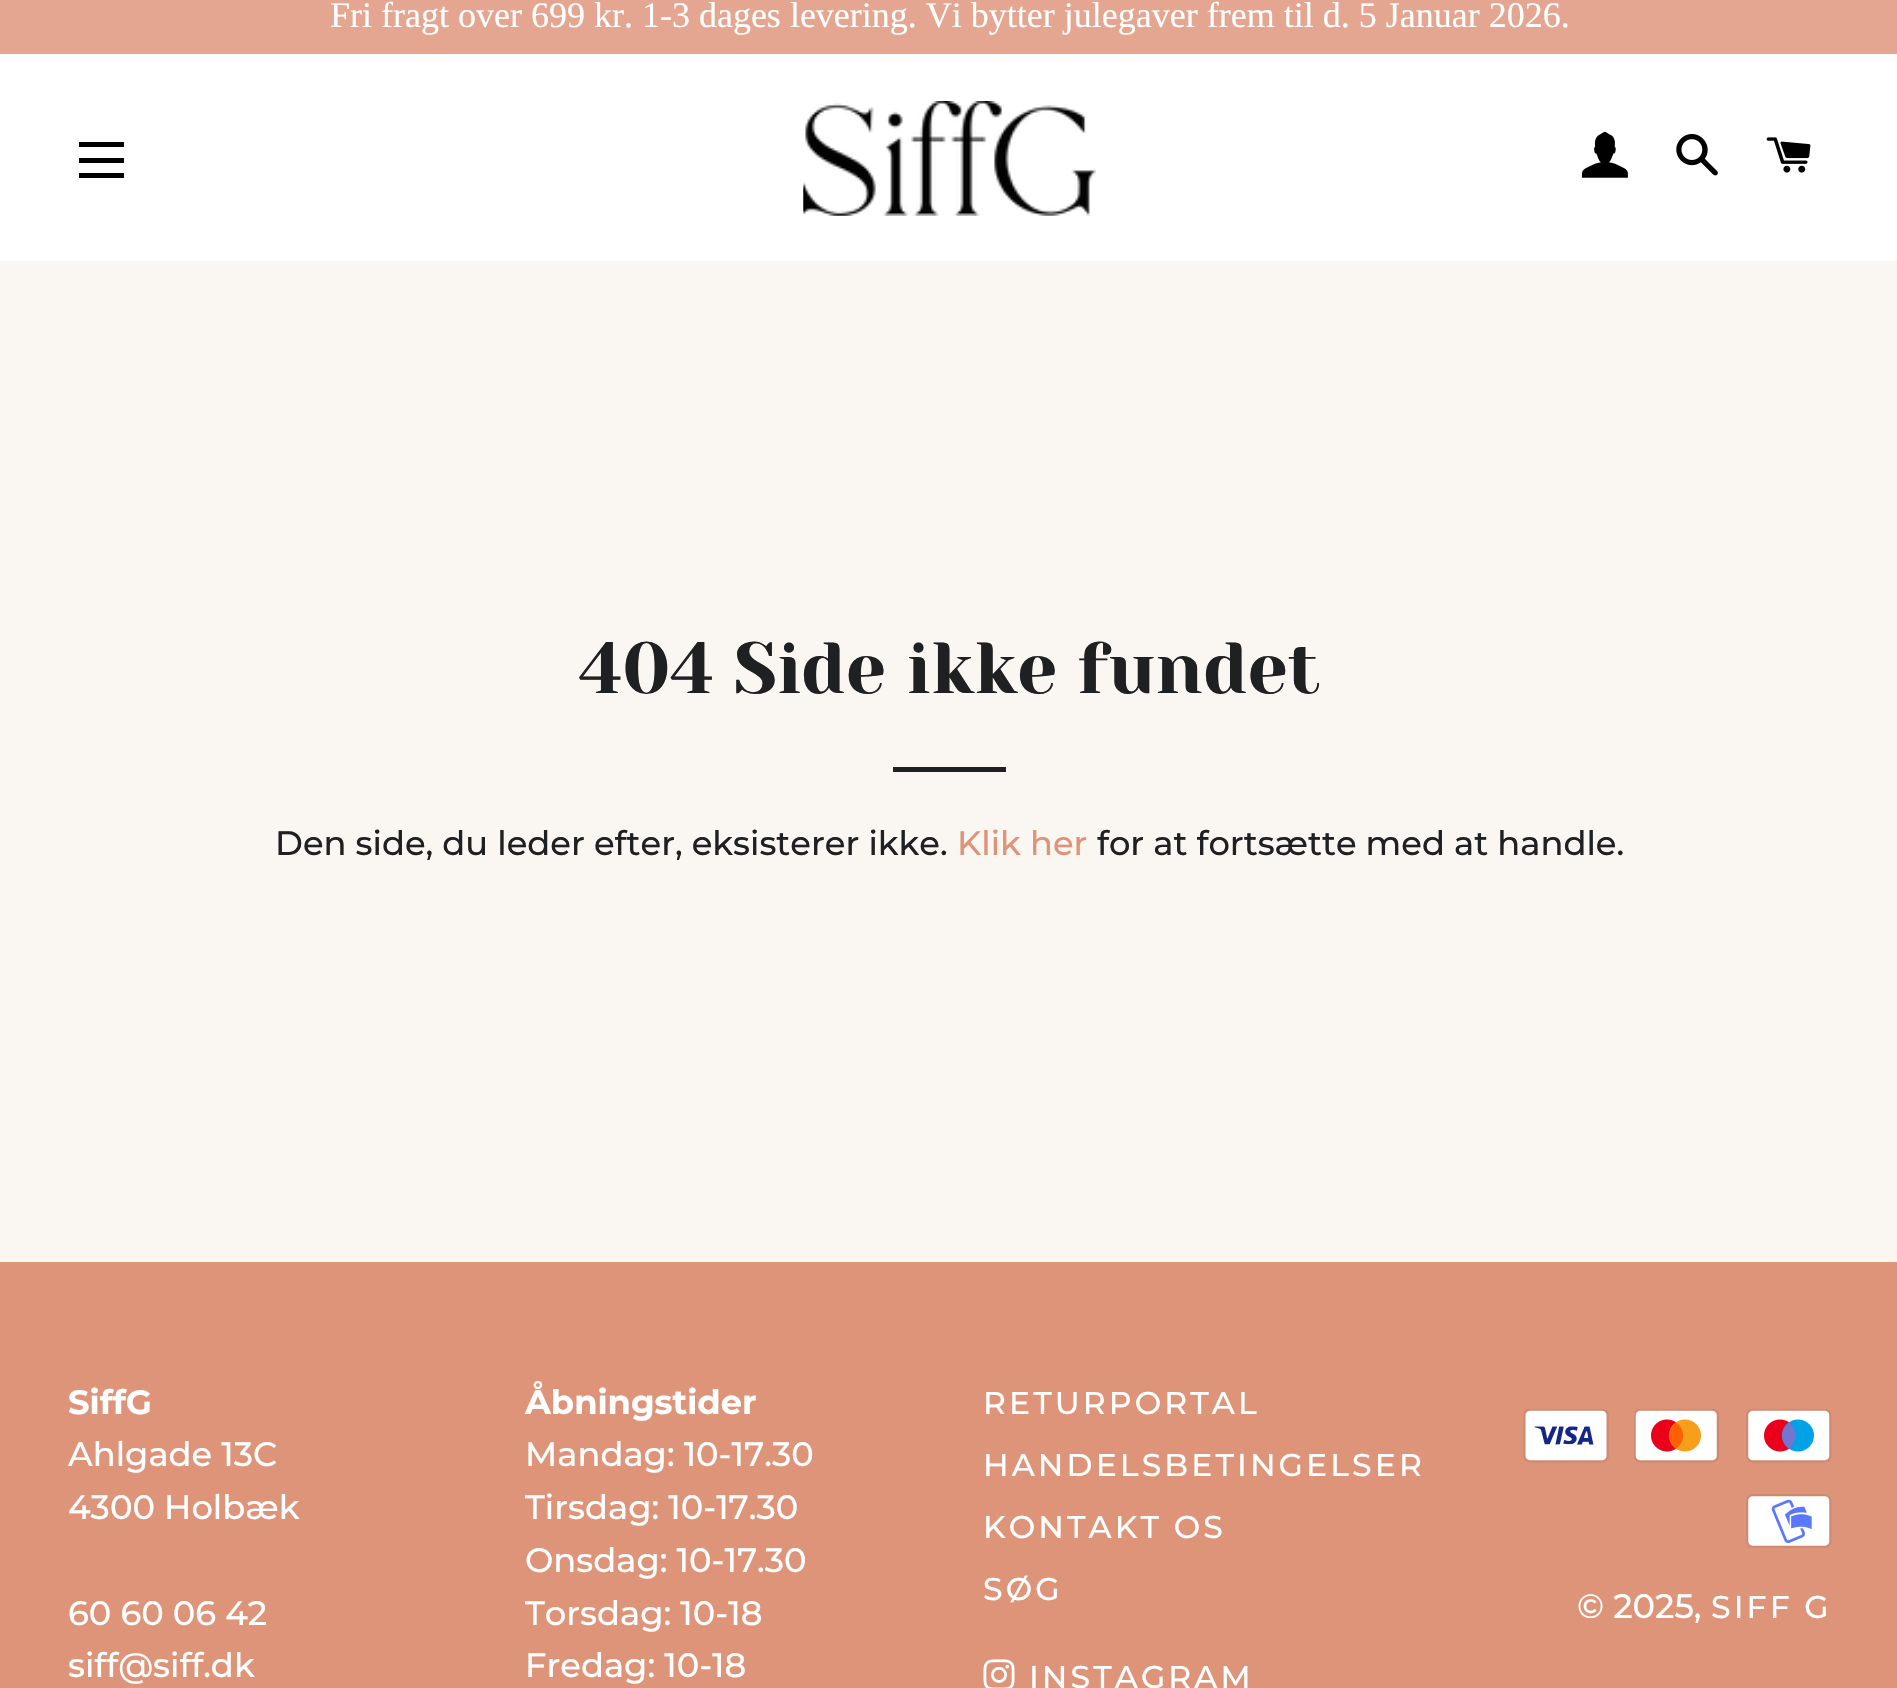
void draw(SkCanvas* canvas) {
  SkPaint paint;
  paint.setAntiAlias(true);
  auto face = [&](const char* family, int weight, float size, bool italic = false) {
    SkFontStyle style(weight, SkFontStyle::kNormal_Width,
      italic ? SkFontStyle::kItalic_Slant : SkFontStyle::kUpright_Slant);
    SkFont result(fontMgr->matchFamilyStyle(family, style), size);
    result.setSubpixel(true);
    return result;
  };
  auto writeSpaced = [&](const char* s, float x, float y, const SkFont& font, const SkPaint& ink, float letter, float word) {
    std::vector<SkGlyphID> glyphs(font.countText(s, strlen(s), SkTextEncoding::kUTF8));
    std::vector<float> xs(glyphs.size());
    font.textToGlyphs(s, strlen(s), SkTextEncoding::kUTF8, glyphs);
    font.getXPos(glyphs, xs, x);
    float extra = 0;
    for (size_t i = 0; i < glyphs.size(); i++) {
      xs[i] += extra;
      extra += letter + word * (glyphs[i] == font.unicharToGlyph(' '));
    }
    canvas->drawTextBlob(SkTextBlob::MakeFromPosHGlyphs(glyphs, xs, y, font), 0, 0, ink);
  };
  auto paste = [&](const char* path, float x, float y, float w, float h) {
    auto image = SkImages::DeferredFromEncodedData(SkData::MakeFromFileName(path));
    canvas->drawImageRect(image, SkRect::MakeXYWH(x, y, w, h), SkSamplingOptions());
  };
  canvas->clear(0xffffffff);
  {
    const struct { float x, y, w, h; SkColor color; } items[] = {
      {0, 0, 1897, 54, 0xffe4a690},
      {79, 142, 45, 5, 0xff000000},
      {79, 158, 45, 5, 0xff000000},
      {79, 173, 45, 5, 0xff000000},
    };
    for (auto [x, y, w, h, color] : items) {
      paint.setColor(color);
      canvas->drawRect(SkRect::MakeXYWH(x, y, w, h), paint);
    }
  }
  paste("img/1.png", 803, 101, 293, 115);
  paste("img/2.png", 1581, 131, 47, 47);
  paste("img/3.png", 1676, 134, 42, 42);
  paste("img/4.png", 1766, 137, 45, 36);
  {
    const struct { float x, y, w, h; SkColor color; } items[] = {
      {0, 261, 1897, 1001, 0xfffaf6f2},
      {893, 767, 113, 5, 0xff1f2021},
      {0, 1262, 1897, 426, 0xffde9479},
    };
    for (auto [x, y, w, h, color] : items) {
      paint.setColor(color);
      canvas->drawRect(SkRect::MakeXYWH(x, y, w, h), paint);
    }
  }
  paste("img/5.png", 983, 1659, 32, 29);
  paste("img/6.png", 1523, 1409, 86, 54);
  paste("img/7.png", 1634, 1409, 85, 54);
  paste("img/8.png", 1746, 1409, 86, 54);
  paste("img/9.png", 1746, 1494, 86, 54);
  auto f0 = face("Liberation Serif", 400, 36);
  paint.setColor(0xffffffff);
  canvas->drawString("Fri fragt over 699 kr. 1-3 dages levering. Vi bytter julegaver frem til d. 5 Januar 2026.", 330, 27, f0, paint);
  auto f1 = face("Yeseva One", 400, 72);
  paint.setColor(0xff1f2021);
  canvas->drawString("404 Side ikke fundet", 579, 693, f1, paint);
  auto f2 = face("Montserrat", 500, 33.75f);
  canvas->drawString("Den side, du leder efter, eksisterer ikke.", 275, 855, f2, paint);
  paint.setColor(0xffde9479);
  canvas->drawString("Klik her", 957, 855, f2, paint);
  paint.setColor(0xff1f2021);
  canvas->drawString("for at fortsætte med at handle.", 1097, 855, f2, paint);
  auto f3 = face("Montserrat", 700, 33.75f);
  paint.setColor(0xffffffff);
  canvas->drawString("SiffG", 68, 1414, f3, paint);
  {
    const struct { const char* s; float x, y; } items[] = {
      {"Ahlgade 13C", 68, 1466},
      {"4300 Holbæk", 68, 1519},
      {"60 60 06 42", 68, 1625},
      {"siff@siff.dk", 68, 1677},
    };
    for (auto [s, x, y] : items) {
      canvas->drawString(s, x, y, f2, paint);
    }
  }
  canvas->drawString("Åbningstider", 525, 1414, f3, paint);
  {
    const struct { const char* s; float x, y; } items[] = {
      {"Mandag: 10-17.30", 525, 1466},
      {"Tirsdag: 10-17.30", 525, 1519},
      {"Onsdag: 10-17.30", 525, 1572},
      {"Torsdag: 10-18", 525, 1625},
      {"Fredag: 10-18", 525, 1677},
    };
    for (auto [s, x, y] : items) {
      canvas->drawString(s, x, y, f2, paint);
    }
  }
  auto f4 = face("Montserrat", 500, 31.5f);
  {
    const struct { const char* s; float x, y; } items[] = {
      {"RETURPORTAL", 983, 1414},
      {"HANDELSBETINGELSER", 983, 1476},
      {"KONTAKT OS", 983, 1538},
      {"SØG", 983, 1600},
      {"INSTAGRAM", 1029, 1688},
    };
    for (auto [s, x, y] : items) {
      writeSpaced(s, x, y, f4, paint, 3.1f, 0);
    }
  }
  canvas->drawString("© 2025,", 1577, 1618, f2, paint);
  writeSpaced("SIFF G", 1711, 1618, f4, paint, 3.1f, 0);
}
